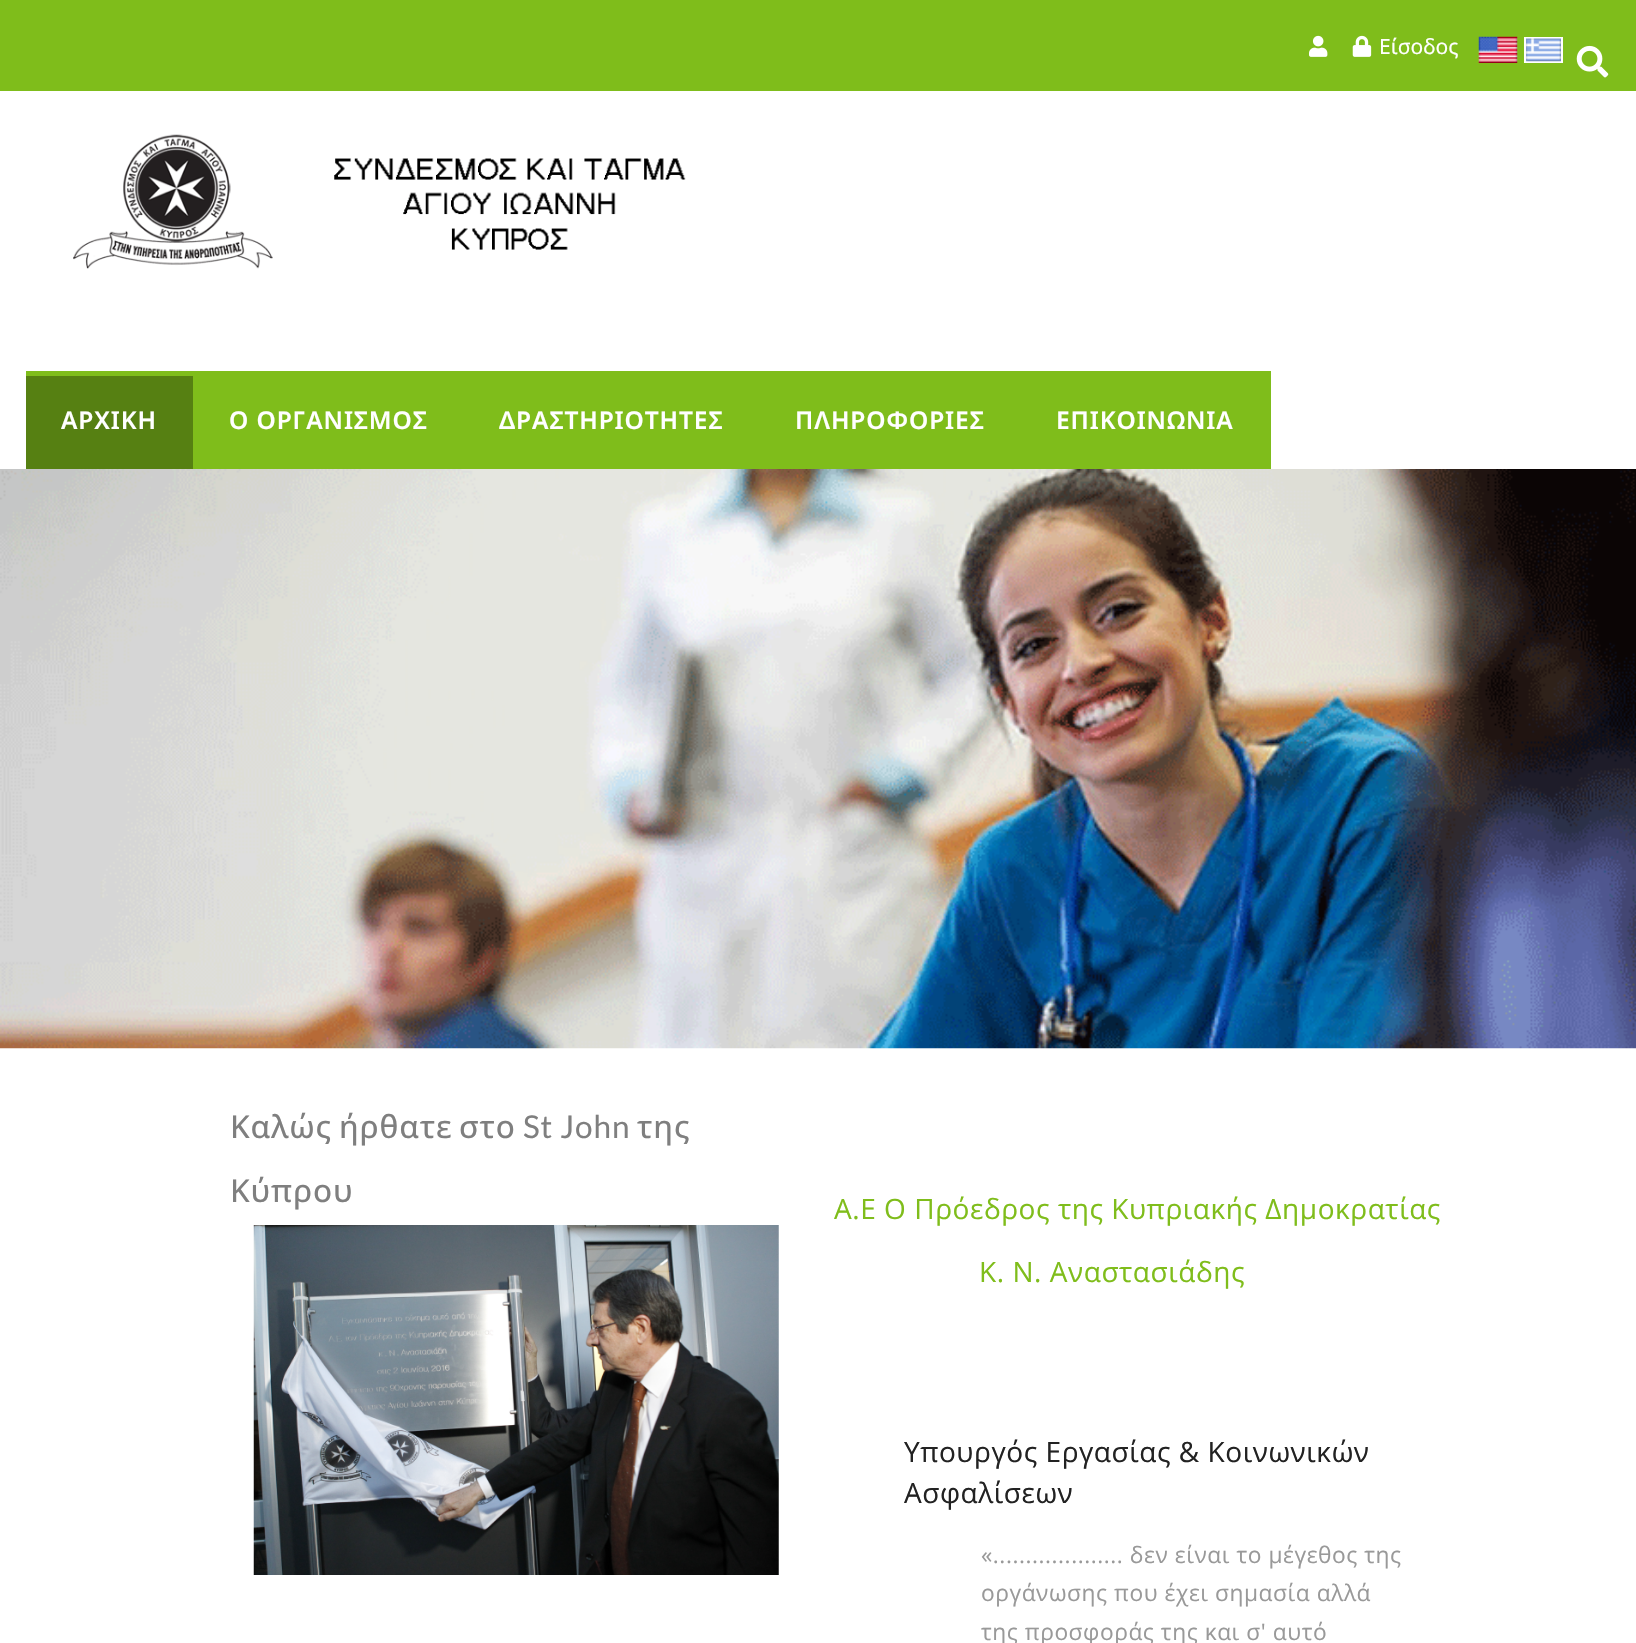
void draw(SkCanvas* canvas) {
  SkPaint paint;
  paint.setAntiAlias(true);
  auto face = [&](const char* family, int weight, float size, bool italic = false) {
    SkFontStyle style(weight, SkFontStyle::kNormal_Width,
      italic ? SkFontStyle::kItalic_Slant : SkFontStyle::kUpright_Slant);
    SkFont result(fontMgr->matchFamilyStyle(family, style), size);
    result.setSubpixel(true);
    return result;
  };
  auto writeSpaced = [&](const char* s, float x, float y, const SkFont& font, const SkPaint& ink, float letter, float word) {
    std::vector<SkGlyphID> glyphs(font.countText(s, strlen(s), SkTextEncoding::kUTF8));
    std::vector<float> xs(glyphs.size());
    font.textToGlyphs(s, strlen(s), SkTextEncoding::kUTF8, glyphs);
    font.getXPos(glyphs, xs, x);
    float extra = 0;
    for (size_t i = 0; i < glyphs.size(); i++) {
      xs[i] += extra;
      extra += letter + word * (glyphs[i] == font.unicharToGlyph(' '));
    }
    canvas->drawTextBlob(SkTextBlob::MakeFromPosHGlyphs(glyphs, xs, y, font), 0, 0, ink);
  };
  auto paste = [&](const char* path, float x, float y, float w, float h) {
    auto image = SkImages::DeferredFromEncodedData(SkData::MakeFromFileName(path));
    canvas->drawImageRect(image, SkRect::MakeXYWH(x, y, w, h), SkSamplingOptions());
  };
  canvas->clear(0xffffffff);
  paint.setColor(0xff7fbd1b);
  canvas->drawRect(SkRect::MakeXYWH(0, 0, 1636, 91), paint);
  paste("img/1.png", 1309, 35, 19, 22);
  paste("img/2.png", 1352, 35, 20, 22);
  paste("img/3.png", 1478, 36, 40, 27);
  paint.setStroke(true);
  paint.setStrokeWidth(2);
  paint.setColor(0xffffffff);
  canvas->drawRect(SkRect::MakeXYWH(1525, 38, 37, 24), paint);
  paste("img/4.png", 1526, 38, 35, 24);
  paste("img/5.png", 1576, 45, 33, 33);
  paste("img/6.png", 73, 134, 613, 135);
  paint.setStroke(false);
  {
    const struct { float x, y, w, h; SkColor color; } items[] = {
      {193, 371, 1078, 98, 0xff7fbd1b},
      {26, 376, 167, 93, 0xff568012},
      {26, 371, 167, 5, 0xff7fbd1b},
    };
    for (auto [x, y, w, h, color] : items) {
      paint.setColor(color);
      canvas->drawRect(SkRect::MakeXYWH(x, y, w, h), paint);
    }
  }
  paste("img/7.png", 0, 469, 1636, 580);
  paste("img/8.png", 253, 1225, 526, 350);
  auto f0 = face("Noto Sans", 400, 21);
  paint.setColor(0xffffffff);
  canvas->drawString("Είσοδος", 1379, 54, f0, paint);
  auto f1 = face("Noto Sans", 600, 24.5f);
  {
    const struct { const char* s; float x, y; } items[] = {
      {"ΑΡΧΙΚΗ", 61, 429},
      {"Ο ΟΡΓΑΝΙΣΜΟΣ", 229, 429},
      {"ΔΡΑΣΤΗΡΙΟΤΗΤΕΣ", 499, 429},
      {"ΠΛΗΡΟΦΟΡΙΕΣ", 795, 429},
      {"ΕΠΙΚΟΙΝΩΝΙΑ", 1056, 429},
    };
    for (auto [s, x, y] : items) {
      writeSpaced(s, x, y, f1, paint, 0.9f, 0);
    }
  }
  auto f2 = face("Open Sans", 500, 31.5f);
  paint.setColor(0xff7f7f7f);
  {
    const struct { const char* s; float x, y; } items[] = {
      {"Καλώς", 230, 1138},
      {"ήρθατε", 339, 1138},
      {"στο", 459, 1138},
    };
    for (auto [s, x, y] : items) {
      writeSpaced(s, x, y, f2, paint, 0.9f, 0);
    }
  }
  auto f3 = face("Lato", 400, 31.5f);
  writeSpaced("St John", 523, 1138, f3, paint, 0.9f, 0);
  writeSpaced("της", 637, 1138, f2, paint, 0.9f, 0);
  writeSpaced("Κύπρου", 230, 1202, f2, paint, 0.9f, 0);
  auto f4 = face("Open Sans", 400, 28);
  paint.setColor(0xff7fbd1b);
  writeSpaced("Α.Ε Ο Πρόεδρος της Κυπριακής Δημοκρατίας", 834, 1219, f4, paint, 0.55f, 0);
  writeSpaced("Κ. Ν. Αναστασιάδης", 979, 1282, f4, paint, 0.55f, 0);
  paint.setColor(0xff222222);
  writeSpaced("Υπουργός Εργασίας & Κοινωνικών", 904, 1462, f4, paint, 0.55f, 0);
  writeSpaced("Ασφαλίσεων", 904, 1503, f4, paint, 0.55f, 0);
  auto f5 = face("Open Sans", 400, 22.75f);
  paint.setColor(0xff999999);
  {
    const struct { const char* s; float x, y; } items[] = {
      {"«.................... δεν είναι το μέγεθος της", 981, 1563},
      {"οργάνωσης που έχει σημασία αλλά", 981, 1601},
      {"της προσφοράς της και σ' αυτό", 981, 1640},
    };
    for (auto [s, x, y] : items) {
      writeSpaced(s, x, y, f5, paint, 0.55f, 0);
    }
  }
}
